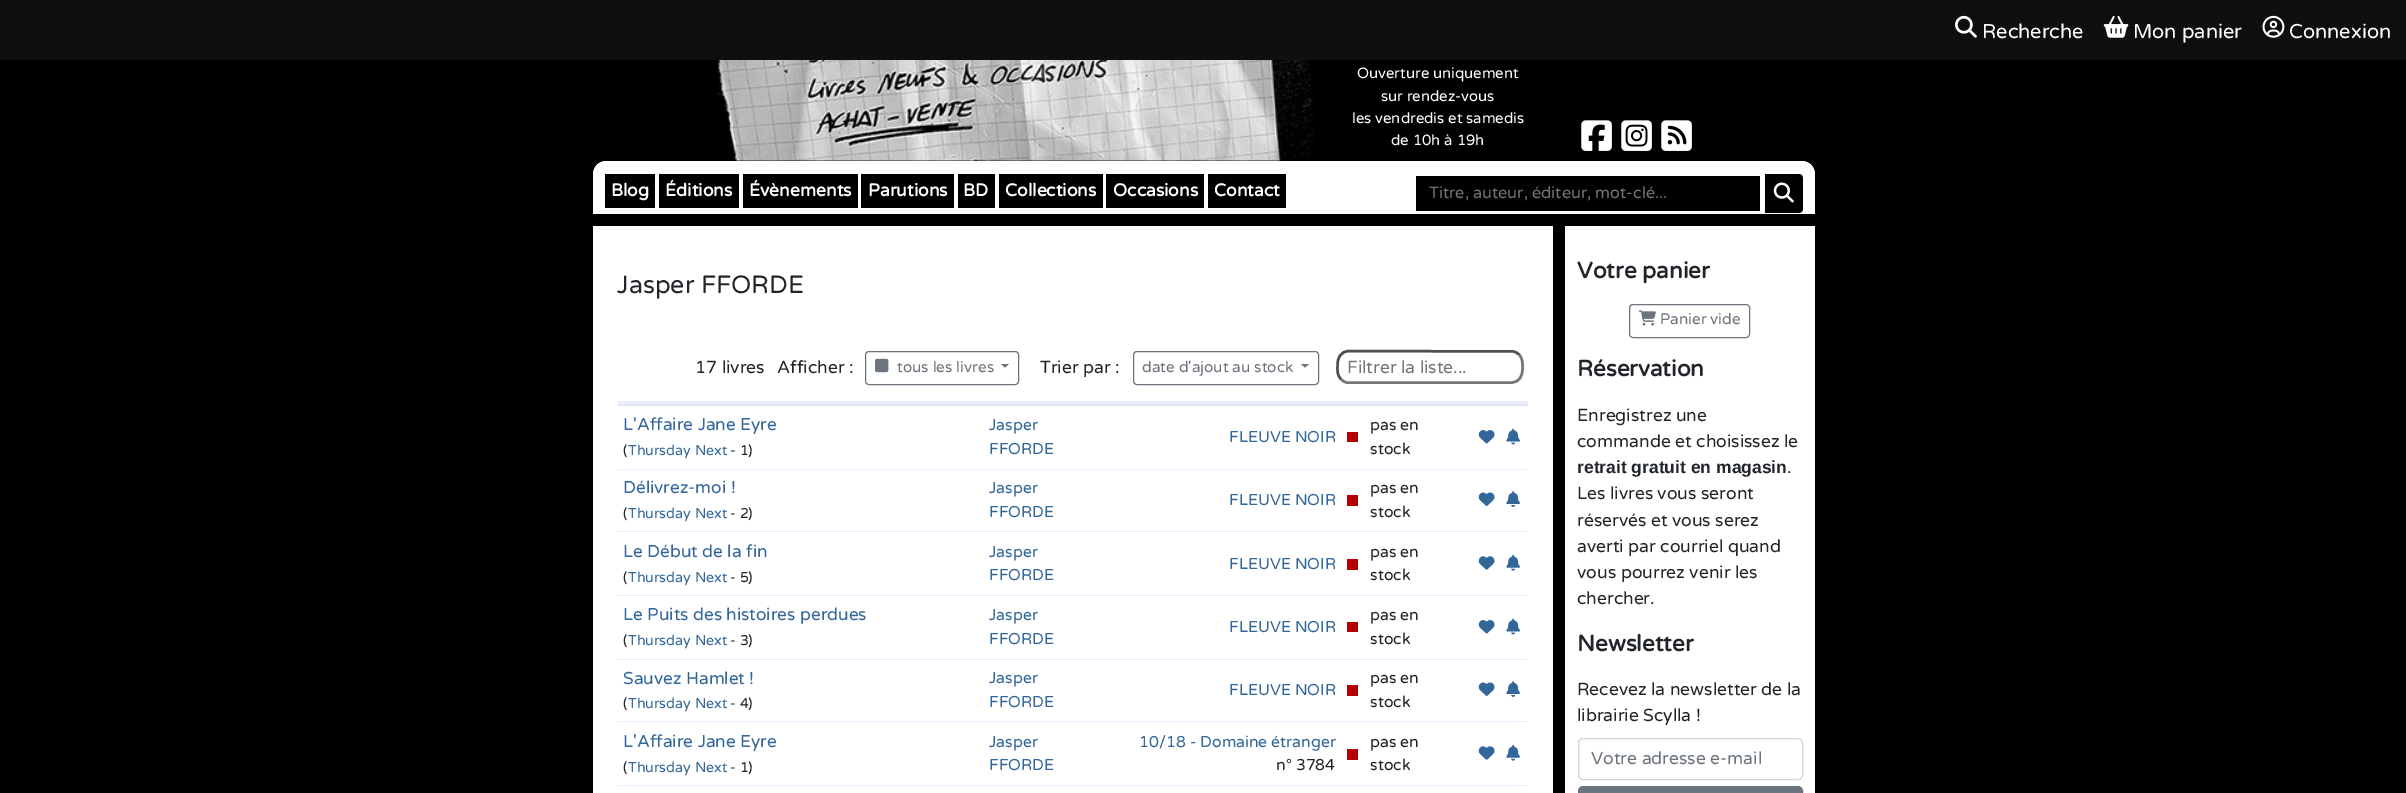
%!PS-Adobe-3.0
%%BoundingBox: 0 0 2406 793
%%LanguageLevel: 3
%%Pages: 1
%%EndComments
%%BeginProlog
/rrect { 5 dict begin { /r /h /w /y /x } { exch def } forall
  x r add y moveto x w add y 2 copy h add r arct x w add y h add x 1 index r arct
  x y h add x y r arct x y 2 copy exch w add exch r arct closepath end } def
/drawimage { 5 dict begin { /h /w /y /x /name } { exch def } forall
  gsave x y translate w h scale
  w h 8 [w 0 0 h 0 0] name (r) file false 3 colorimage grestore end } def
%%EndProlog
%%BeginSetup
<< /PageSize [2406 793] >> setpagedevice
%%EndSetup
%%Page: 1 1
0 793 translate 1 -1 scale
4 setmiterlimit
0 setgray
0 0 2406 793 rectfill
0.059 setgray
0 0 2406 60 rectfill
(images/1.raw) 1955 15 22 23 drawimage
(images/2.raw) 2103 15 26 23 drawimage
(images/3.raw) 2262 15 23 23 drawimage
(images/4.raw) 715 60 601 101 drawimage
(images/5.raw) 1581 120 31 31 drawimage
(images/6.raw) 1621 120 31 31 drawimage
(images/7.raw) 1661 120 31 31 drawimage
1 setgray
593 161 1222 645 13 rrect fill
0 setgray
593 214 1222 12 rectfill
605 174 50 34 rectfill
659 174 80 34 rectfill
743 174 115 34 rectfill
861 174 93 34 rectfill
958 174 37 34 rectfill
999 174 104 34 rectfill
1106 174 98 34 rectfill
1208 174 78 34 rectfill
1416 176 344 35 rectfill
newpath 1765 174 moveto 1799 174 lineto 1801 174 1803 176 1803 178 curveto 1803 209 lineto 1803 211 1801 213 1799 213 curveto 1765 213 lineto closepath fill
(images/8.raw) 1773 182 21 21 drawimage
0.91 0.929 1 setrgbcolor
618 401 910 4 rectfill
0.424 0.459 0.49 setrgbcolor
865.5 351.5 153 33 3.5 rrect stroke
(images/9.raw) 875 358 14 15 drawimage
newpath 1001 364 moveto 1009 364 lineto 1005 367.5 lineto closepath fill
1133.5 351.5 185 33 3.5 rrect stroke
newpath 1301 364 moveto 1309 364 lineto 1305 367.5 lineto closepath fill
0.463 setgray
2.5 setlinewidth
newpath 1519 354.5 moveto 1523 358.5 1522.5 363.5 1522.5 368.5 curveto 1522.5 375.5 1520 382.5 1511 382.5 curveto 1346.5 382.5 lineto 1344.5 382 1342.5 381 1341 379 curveto stroke
0.31 setgray
newpath 1341 379 moveto 1337 375.5 1337.5 370.5 1337.5 365.5 curveto 1337.5 358 1340 351.5 1349 351 curveto 1513.5 351.5 lineto 1515.5 352 1517.5 353 1519 354.5 curveto stroke
0.871 0.886 0.902 setrgbcolor
618 405 910 1 rectfill
0.91 0.929 1 setrgbcolor
618 469 910 1 rectfill
(images/10.raw) 1506 428 14 17 drawimage
0.702 0 0 setrgbcolor
1347 432 11 10 rectfill
(images/11.raw) 1478 430 17 14 drawimage
0.91 0.929 1 setrgbcolor
618 531 910 1 rectfill
(images/12.raw) 1506 491 14 16 drawimage
0.702 0 0 setrgbcolor
1347 495 11 11 rectfill
(images/13.raw) 1478 492 17 14 drawimage
0.91 0.929 1 setrgbcolor
618 595 910 1 rectfill
(images/14.raw) 1506 555 14 16 drawimage
0.702 0 0 setrgbcolor
1347 559 11 11 rectfill
(images/15.raw) 1478 556 17 14 drawimage
0.91 0.929 1 setrgbcolor
618 659 910 1 rectfill
(images/10.raw) 1506 618 14 17 drawimage
0.702 0 0 setrgbcolor
1347 622 11 10 rectfill
(images/11.raw) 1478 620 17 14 drawimage
0.91 0.929 1 setrgbcolor
618 721 910 1 rectfill
(images/12.raw) 1506 681 14 16 drawimage
0.702 0 0 setrgbcolor
1347 685 11 11 rectfill
(images/13.raw) 1478 682 17 14 drawimage
0.91 0.929 1 setrgbcolor
618 785 910 1 rectfill
(images/14.raw) 1506 745 14 16 drawimage
0.702 0 0 setrgbcolor
1347 749 11 11 rectfill
(images/15.raw) 1478 746 17 14 drawimage
0 setgray
1553 226 12 567 rectfill
0.424 0.459 0.49 setrgbcolor
1 setlinewidth
1629.5 304.5 120 33 3.5 rrect stroke
(images/16.raw) 1638 310 18 16 drawimage
0.808 0.831 0.855 setrgbcolor
1578.5 738.5 224 41 4.5 rrect stroke
0.424 0.459 0.49 setrgbcolor
1578.5 786.5 224 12 4.5 rrect gsave fill grestore
stroke
/VarelaRound-Regular [20 0 0 -20 0 0] selectfont
1 setgray
1982 38 moveto (Recherche) show
2133 38 moveto (Mon panier) show
2289 38 moveto (Connexion) show
/VarelaRound-Regular [14.9 0 0 -14.9 0 0] selectfont
1357 78 moveto (Ouverture uniquement) show
1381 101 moveto (sur rendez-vous) show
1352 123 moveto (les vendredis et samedis) show
1391 145 moveto (de 10h à 19h) show
/VarelaRound-Bold [17.5 0 0 -17.5 0 0] selectfont
611 196 moveto (Blog) show
665 196 moveto (Éditions) show
749 196 moveto (Évènements) show
868 196 moveto (Parutions) show
963 196 moveto (BD) show
1005 196 moveto (Collections) show
1113 196 moveto (Occasions) show
1214 196 moveto (Contact) show
/VarelaRound-Regular [16.25 0 0 -16.25 0 0] selectfont
0.459 setgray
1429 198 moveto (Titre, auteur, éditeur, mot-clé...) show
/VarelaRound-Regular [25 0 0 -25 0 0] selectfont
0.129 0.145 0.161 setrgbcolor
617 293 moveto (Jasper FFORDE) show
/VarelaRound-Regular [17.5 0 0 -17.5 0 0] selectfont
695 373 moveto (17 livres) show
777 373 moveto (Afficher :) show
/VarelaRound-Regular [15.25 0 0 -15.25 0 0] selectfont
0.424 0.459 0.49 setrgbcolor
897 372 moveto (tous les livres) show
/VarelaRound-Regular [17.5 0 0 -17.5 0 0] selectfont
0.129 0.145 0.161 setrgbcolor
1040 373 moveto (Trier par :) show
/VarelaRound-Regular [15.25 0 0 -15.25 0 0] selectfont
0.424 0.459 0.49 setrgbcolor
1142 372 moveto (date d'ajout au stock) show
/VarelaRound-Regular [17.5 0 0 -17.5 0 0] selectfont
0.459 setgray
1347 373 moveto (Filtrer la liste...) show
/VarelaRound-Regular [17.25 0 0 -17.25 0 0] selectfont
0.2 0.4 0.6 setrgbcolor
623 430 moveto (L'Affaire Jane Eyre) show
/VarelaRound-Regular [14.25 0 0 -14.25 0 0] selectfont
0.129 0.145 0.161 setrgbcolor
623 455 moveto (\() show
0.2 0.4 0.6 setrgbcolor
628 455 moveto (Thursday Next) show
0.129 0.145 0.161 setrgbcolor
730 455 moveto (- 1\)) show
/VarelaRound-Regular [15.75 0 0 -15.75 0 0] selectfont
0.2 0.4 0.6 setrgbcolor
989 430 moveto (Jasper) show
989 454 moveto (FFORDE) show
1229 442 moveto (FLEUVE NOIR) show
0.129 0.145 0.161 setrgbcolor
1370 430 moveto (pas en) show
1370 454 moveto (stock) show
/VarelaRound-Regular [17.25 0 0 -17.25 0 0] selectfont
0.2 0.4 0.6 setrgbcolor
623 493 moveto (Délivrez-moi !) show
/VarelaRound-Regular [14.25 0 0 -14.25 0 0] selectfont
0.129 0.145 0.161 setrgbcolor
623 518 moveto (\() show
0.2 0.4 0.6 setrgbcolor
628 518 moveto (Thursday Next) show
0.129 0.145 0.161 setrgbcolor
730 518 moveto (- 2\)) show
/VarelaRound-Regular [15.75 0 0 -15.75 0 0] selectfont
0.2 0.4 0.6 setrgbcolor
989 493 moveto (Jasper) show
989 517 moveto (FFORDE) show
0.129 0.145 0.161 setrgbcolor
1370 493 moveto (pas en) show
1370 517 moveto (stock) show
0.2 0.4 0.6 setrgbcolor
1229 505 moveto (FLEUVE NOIR) show
/VarelaRound-Regular [17.25 0 0 -17.25 0 0] selectfont
623 557 moveto (Le Début de la fin) show
/VarelaRound-Regular [14.25 0 0 -14.25 0 0] selectfont
0.129 0.145 0.161 setrgbcolor
623 582 moveto (\() show
0.2 0.4 0.6 setrgbcolor
628 582 moveto (Thursday Next) show
0.129 0.145 0.161 setrgbcolor
730 582 moveto (- 5\)) show
/VarelaRound-Regular [15.75 0 0 -15.75 0 0] selectfont
0.2 0.4 0.6 setrgbcolor
989 557 moveto (Jasper) show
989 580 moveto (FFORDE) show
0.129 0.145 0.161 setrgbcolor
1370 557 moveto (pas en) show
1370 580 moveto (stock) show
0.2 0.4 0.6 setrgbcolor
1229 569 moveto (FLEUVE NOIR) show
/VarelaRound-Regular [17.25 0 0 -17.25 0 0] selectfont
623 620 moveto (Le Puits des histoires perdues) show
/VarelaRound-Regular [14.25 0 0 -14.25 0 0] selectfont
0.129 0.145 0.161 setrgbcolor
623 645 moveto (\() show
0.2 0.4 0.6 setrgbcolor
628 645 moveto (Thursday Next) show
0.129 0.145 0.161 setrgbcolor
730 645 moveto (- 3\)) show
/VarelaRound-Regular [15.75 0 0 -15.75 0 0] selectfont
0.2 0.4 0.6 setrgbcolor
989 620 moveto (Jasper) show
989 644 moveto (FFORDE) show
0.129 0.145 0.161 setrgbcolor
1370 620 moveto (pas en) show
1370 644 moveto (stock) show
0.2 0.4 0.6 setrgbcolor
1229 632 moveto (FLEUVE NOIR) show
/VarelaRound-Regular [17.25 0 0 -17.25 0 0] selectfont
623 684 moveto (Sauvez Hamlet !) show
/VarelaRound-Regular [14.25 0 0 -14.25 0 0] selectfont
0.129 0.145 0.161 setrgbcolor
623 708 moveto (\() show
0.2 0.4 0.6 setrgbcolor
628 708 moveto (Thursday Next) show
0.129 0.145 0.161 setrgbcolor
730 708 moveto (- 4\)) show
/VarelaRound-Regular [15.75 0 0 -15.75 0 0] selectfont
0.2 0.4 0.6 setrgbcolor
989 683 moveto (Jasper) show
989 707 moveto (FFORDE) show
0.129 0.145 0.161 setrgbcolor
1370 683 moveto (pas en) show
1370 707 moveto (stock) show
0.2 0.4 0.6 setrgbcolor
1229 695 moveto (FLEUVE NOIR) show
/VarelaRound-Regular [17.25 0 0 -17.25 0 0] selectfont
623 747 moveto (L'Affaire Jane Eyre) show
/VarelaRound-Regular [14.25 0 0 -14.25 0 0] selectfont
0.129 0.145 0.161 setrgbcolor
623 772 moveto (\() show
0.2 0.4 0.6 setrgbcolor
628 772 moveto (Thursday Next) show
0.129 0.145 0.161 setrgbcolor
730 772 moveto (- 1\)) show
/VarelaRound-Regular [15.75 0 0 -15.75 0 0] selectfont
0.2 0.4 0.6 setrgbcolor
989 747 moveto (Jasper) show
989 770 moveto (FFORDE) show
1139 747 moveto (10/18 - Domaine étranger) show
0.129 0.145 0.161 setrgbcolor
1276 770 moveto (n° 3784) show
1370 747 moveto (pas en) show
1370 770 moveto (stock) show
/VarelaRound-Bold [22.5 0 0 -22.5 0 0] selectfont
1577 278 moveto (Votre panier) show
/VarelaRound-Regular [15.25 0 0 -15.25 0 0] selectfont
0.424 0.459 0.49 setrgbcolor
1660 324 moveto (Panier vide) show
/VarelaRound-Bold [22.5 0 0 -22.5 0 0] selectfont
0.129 0.145 0.161 setrgbcolor
1577 376 moveto (Réservation) show
/VarelaRound-Regular [17.5 0 0 -17.5 0 0] selectfont
1577 421 moveto (Enregistrez une) show
1577 447 moveto (commande et choisissez le) show
/LiberationSans-Bold [17.5 0 0 -17.5 0 0] selectfont
1577 473 moveto (retrait gratuit en magasin) show
/VarelaRound-Regular [17.5 0 0 -17.5 0 0] selectfont
1787 473 moveto (.) show
1577 499 moveto (Les livres vous seront) show
1577 526 moveto (réservés et vous serez) show
1577 552 moveto (averti par courriel quand) show
1577 578 moveto (vous pourrez venir les) show
1577 604 moveto (chercher.) show
/VarelaRound-Bold [22.5 0 0 -22.5 0 0] selectfont
1577 651 moveto (Newsletter) show
/VarelaRound-Regular [17.5 0 0 -17.5 0 0] selectfont
1577 695 moveto (Recevez la newsletter de la) show
1577 721 moveto (librairie Scylla !) show
0.424 0.459 0.49 setrgbcolor
1591 764 moveto (Votre adresse e-mail) show
showpage
%%EOF
